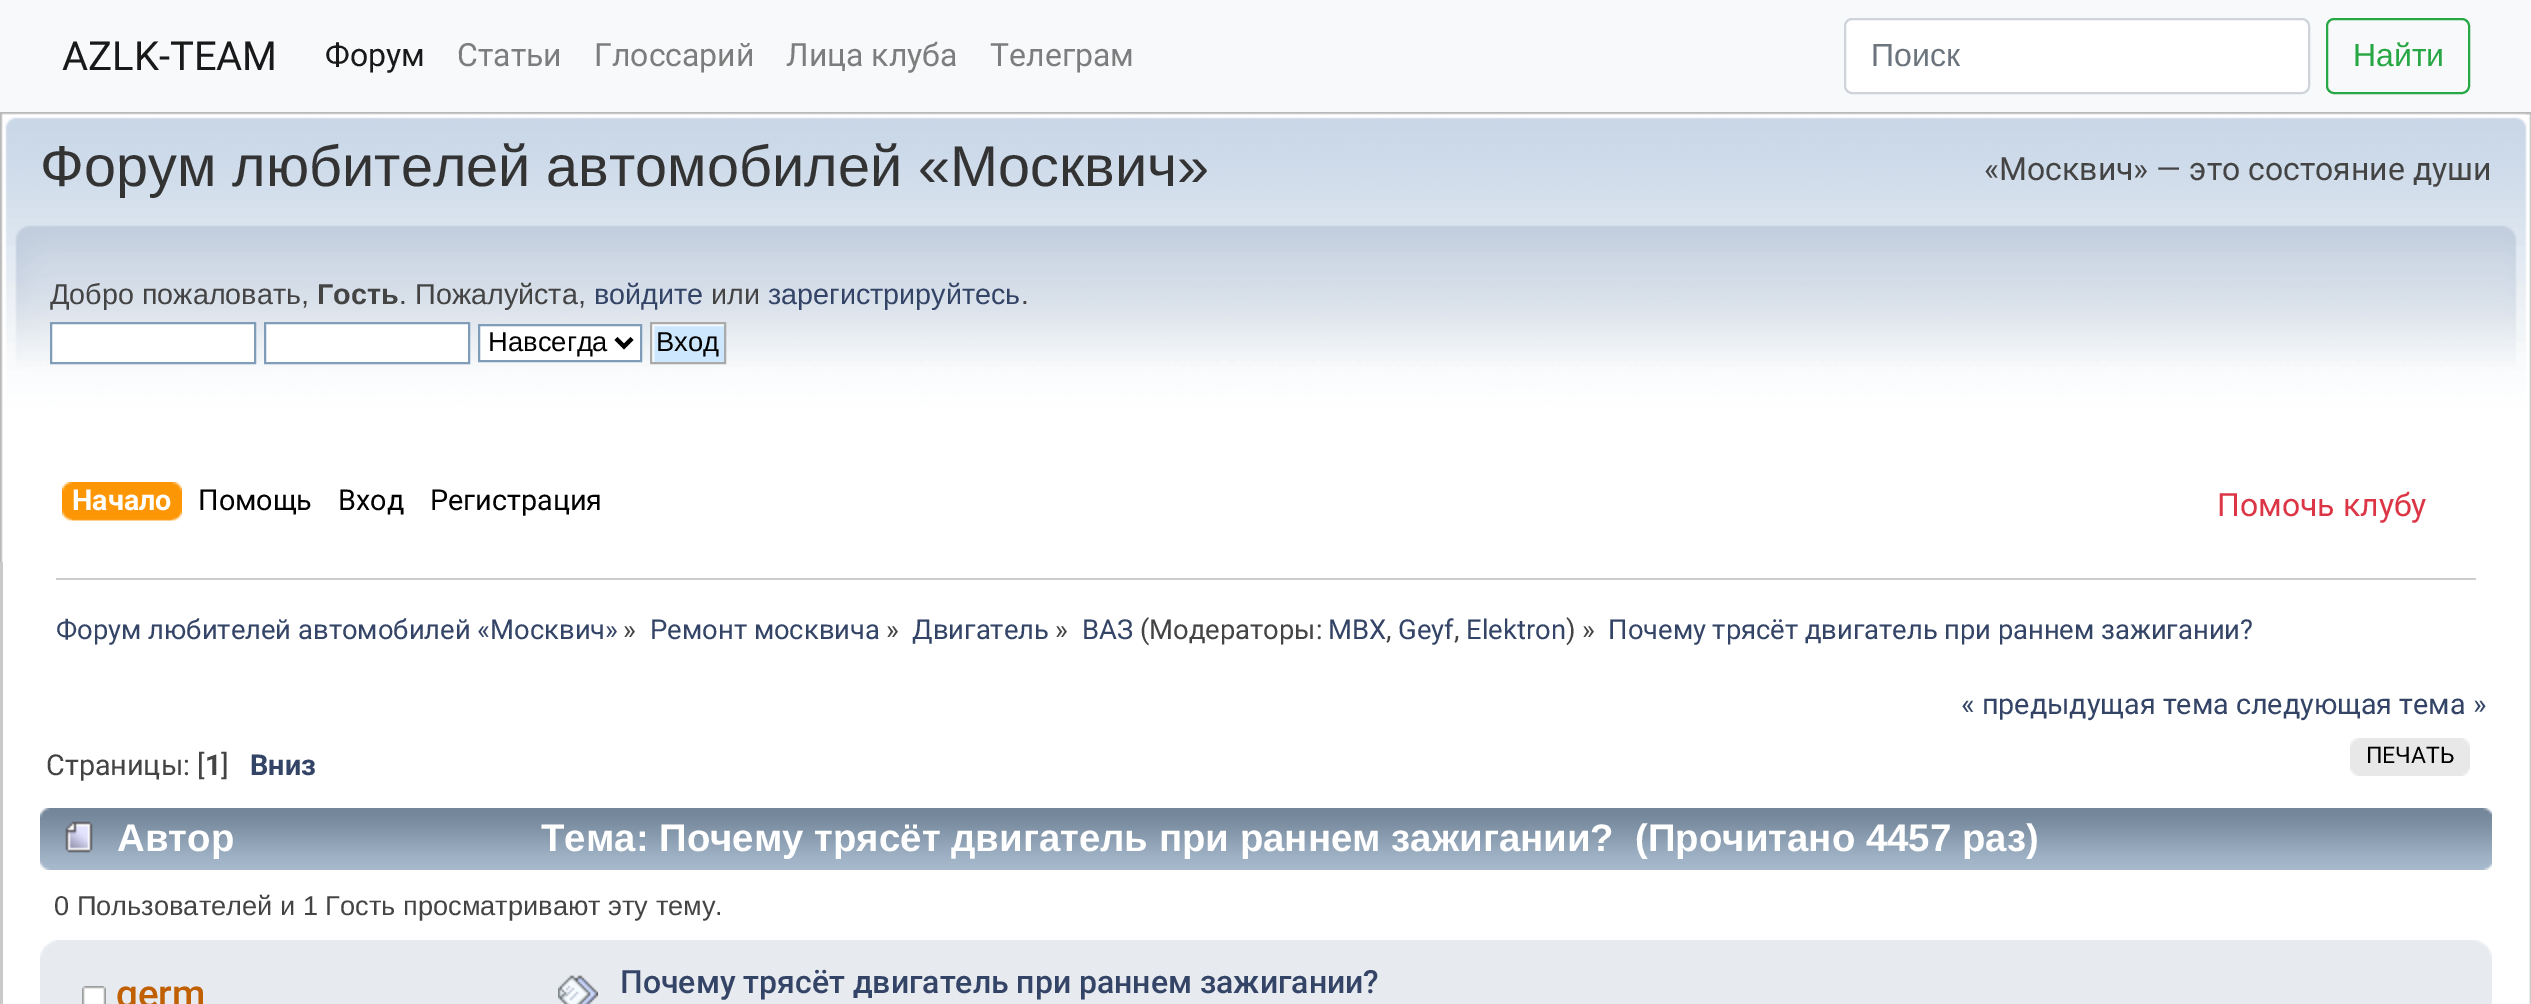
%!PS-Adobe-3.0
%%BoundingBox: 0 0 2531 1004
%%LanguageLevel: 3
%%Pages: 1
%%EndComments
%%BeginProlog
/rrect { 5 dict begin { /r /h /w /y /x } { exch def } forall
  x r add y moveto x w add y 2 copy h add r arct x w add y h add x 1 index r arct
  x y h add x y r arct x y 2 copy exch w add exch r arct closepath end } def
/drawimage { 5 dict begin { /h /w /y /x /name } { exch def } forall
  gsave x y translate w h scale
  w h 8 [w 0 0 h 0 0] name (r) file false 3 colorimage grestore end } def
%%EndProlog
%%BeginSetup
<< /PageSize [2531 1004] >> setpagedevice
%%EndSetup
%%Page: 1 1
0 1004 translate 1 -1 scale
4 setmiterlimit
1 setgray
0 0 2531 1004 rectfill
0.973 0.976 0.98 setrgbcolor
0 0 2531 112 rectfill
1 setgray
1845 19 464 74 7 rrect gsave fill grestore
0.808 0.831 0.855 setrgbcolor
2 setlinewidth
stroke
0.157 0.655 0.271 setrgbcolor
2327 19 142 74 7 rrect stroke
(images/1.raw) 0 112 2531 450 drawimage
(images/2.raw) 2505 113 26 449 drawimage
1 setgray
newpath 51 323 moveto 255 323 lineto 255 363 lineto 51 363 lineto closepath gsave fill grestore
0.498 0.616 0.725 setrgbcolor
stroke
1 setgray
newpath 265 323 moveto 469 323 lineto 469 363 lineto 265 363 lineto closepath gsave fill grestore
0.498 0.616 0.725 setrgbcolor
stroke
1 setgray
newpath 479 325 moveto 641 325 lineto 641 361 lineto 479 361 lineto closepath gsave fill grestore
0.498 0.616 0.725 setrgbcolor
stroke
0 setgray
4 setlinewidth
newpath 616 338.5 moveto 624 346.5 lineto 632 338.5 lineto stroke
(images/3.raw) 652 324 72 38 drawimage
0.667 setgray
2 setlinewidth
651 323 74 40 rectstroke
(images/4.raw) 72 482 110 39 drawimage
(images/5.raw) 62 482 110 39 drawimage
0.788 setgray
0 562 3 442 rectfill
(images/6.raw) 2529 562 2 442 drawimage
0.8 setgray
56 578 2420 2 rectfill
0.91 setgray
2358 738 105 38 rectfill
(images/7.raw) 2350 738 8 38 drawimage
(images/8.raw) 2463 738 7 38 drawimage
(images/9.raw) 40 808 2443 62 drawimage
(images/10.raw) 2483 808 9 62 drawimage
(images/11.raw) 65 821 28 32 drawimage
0.906 0.918 0.937 setrgbcolor
40 940 2452 64 rectfill
(images/12.raw) 40 940 17 17 drawimage
(images/13.raw) 2475 940 17 16 drawimage
(images/14.raw) 82 986 24 18 drawimage
(images/15.raw) 558 975 40 29 drawimage
/Roboto-Regular [40 0 0 -40 0 0] selectfont
0.098 setgray
62 70 moveto (AZLK-TEAM) show
/Roboto-Regular [32 0 0 -32 0 0] selectfont
325 66 moveto (Форум) show
0.486 0.49 0.49 setrgbcolor
457 66 moveto (Статьи) show
594 66 moveto (Глоссарий) show
786 66 moveto (Лица клуба) show
990 66 moveto (Телеграм) show
/LiberationSans-Regular [32 0 0 -32 0 0] selectfont
0.424 0.459 0.49 setrgbcolor
1871 66 moveto (Поиск) show
0.157 0.655 0.271 setrgbcolor
2353 66 moveto (Найти) show
/LiberationSans-Regular [57.6 0 0 -57.6 0 0] selectfont
0.2 setgray
40 186 moveto (Форум любителей автомобилей «Москвич») show
/Roboto-Regular [32 0 0 -32 0 0] selectfont
0.267 setgray
1984 180 moveto («Москвич» — это состояние души) show
/LiberationSans-Regular [28.75 0 0 -28.75 0 0] selectfont
50 304 moveto (Добро пожаловать,) show
/LiberationSans-Bold [28.75 0 0 -28.75 0 0] selectfont
317 304 moveto (Гость) show
/LiberationSans-Regular [28.75 0 0 -28.75 0 0] selectfont
399 304 moveto (. Пожалуйста,) show
0.2 0.267 0.4 setrgbcolor
594 304 moveto (войдите) show
0.267 setgray
711 304 moveto (или) show
0.2 0.267 0.4 setrgbcolor
768 304 moveto (зарегистрируйтесь) show
0.267 setgray
1021 304 moveto (.) show
/LiberationSans-Regular [27.4 0 0 -27.4 0 0] selectfont
0 setgray
488 351 moveto (Навсегда) show
656 351 moveto (Вход) show
/Roboto-Bold [28.75 0 0 -28.75 0 0] selectfont
1 setgray
72 510 moveto (Начало) show
/Roboto-Regular [28.75 0 0 -28.75 0 0] selectfont
0 setgray
198 510 moveto (Помощь) show
338 510 moveto (Вход) show
430 510 moveto (Регистрация) show
/Roboto-Regular [32 0 0 -32 0 0] selectfont
0.863 0.208 0.271 setrgbcolor
2217 516 moveto (Помочь клубу) show
/Roboto-Regular [27.4 0 0 -27.4 0 0] selectfont
0.2 0.267 0.4 setrgbcolor
56 639 moveto (Форум любителей автомобилей «Москвич») show
0.267 setgray
623 639 moveto (») show
0.2 0.267 0.4 setrgbcolor
650 639 moveto (Ремонт москвича) show
0.267 setgray
886 639 moveto (») show
0.2 0.267 0.4 setrgbcolor
912 639 moveto (Двигатель) show
0.267 setgray
1055 639 moveto (») show
0.2 0.267 0.4 setrgbcolor
1082 639 moveto (ВАЗ) show
0.267 setgray
1140 639 moveto (\(Модераторы:) show
0.2 0.267 0.4 setrgbcolor
1328 639 moveto (MBX) show
0.267 setgray
1386 639 moveto (,) show
0.2 0.267 0.4 setrgbcolor
1398 639 moveto (Geyf) show
0.267 setgray
1454 639 moveto (,) show
0.2 0.267 0.4 setrgbcolor
1466 639 moveto (Elektron) show
0.267 setgray
1566 639 moveto (\) ») show
0.2 0.267 0.4 setrgbcolor
1608 639 moveto -0.25 0 32 (Почему трясёт двигатель при раннем зажигании?) widthshow
/Roboto-Regular [28.75 0 0 -28.75 0 0] selectfont
1961 714 moveto (« предыдущая тема следующая тема ») show
0.267 setgray
46 775 moveto (Страницы: [) show
/Roboto-Bold [28.75 0 0 -28.75 0 0] selectfont
205 775 moveto (1) show
/Roboto-Regular [28.75 0 0 -28.75 0 0] selectfont
221 775 moveto (]) show
/Roboto-Bold [28.75 0 0 -28.75 0 0] selectfont
0.2 0.267 0.4 setrgbcolor
250 775 moveto (Вниз) show
/Roboto-Regular [23 0 0 -23 0 0] selectfont
0 setgray
2366 763 moveto (ПЕЧАТЬ) show
/LiberationSans-Bold [38.4 0 0 -38.4 0 0] selectfont
1 setgray
117 851 moveto (Автор) show
541 851 moveto (Тема: Почему трясёт двигатель при раннем зажигании?  \(Прочитано 4457 раз\)) show
/LiberationSans-Regular [27.2 0 0 -27.2 0 0] selectfont
0.267 setgray
54 915 moveto (0 Пользователей и 1 Гость просматривают эту тему.) show
/Roboto-Medium [38.4 0 0 -38.4 0 0] selectfont
0.753 0.376 0.008 setrgbcolor
116 1007 moveto (germ) show
/Roboto-Medium [32 0 0 -32 0 0] selectfont
0.2 0.267 0.4 setrgbcolor
620 993 moveto (Почему трясёт двигатель при раннем зажигании?) show
showpage
%%EOF
